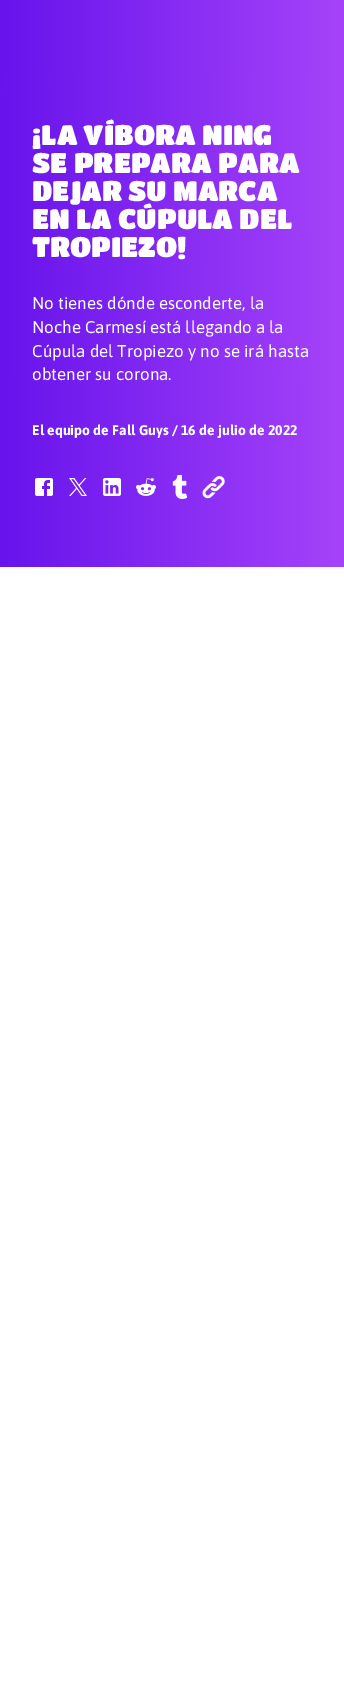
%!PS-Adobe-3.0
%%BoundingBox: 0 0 344 1703
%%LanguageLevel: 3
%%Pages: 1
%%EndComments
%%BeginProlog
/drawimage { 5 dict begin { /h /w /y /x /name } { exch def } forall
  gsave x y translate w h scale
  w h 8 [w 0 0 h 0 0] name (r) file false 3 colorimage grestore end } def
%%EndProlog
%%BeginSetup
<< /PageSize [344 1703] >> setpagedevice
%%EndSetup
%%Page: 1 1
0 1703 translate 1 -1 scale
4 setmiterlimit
1 setgray
0 0 344 1703 rectfill
gsave newpath 0 0 moveto 344 0 lineto 344 72 lineto 0 72 lineto closepath clip newpath
<< /ShadingType 2 /ColorSpace /DeviceRGB /Coords [344 36 0 36] /Extend [true true] /Function << /FunctionType 2 /Domain [0 1] /C0 [0.651 0.263 0.98] /C1 [0.404 0.075 0.925] /N 1 >> >> shfill grestore
gsave newpath 0 72 moveto 344 72 lineto 344 567 lineto 0 567 lineto closepath clip newpath
<< /ShadingType 2 /ColorSpace /DeviceRGB /Coords [344 319 0 320] /Extend [true true] /Function << /FunctionType 2 /Domain [0 1] /C0 [0.651 0.263 0.98] /C1 [0.404 0.075 0.925] /N 1 >> >> shfill grestore
(images/1.raw) 35 478 18 18 drawimage
(images/2.raw) 69 478 18 18 drawimage
(images/3.raw) 103 478 18 18 drawimage
(images/4.raw) 136 478 20 18 drawimage
(images/5.raw) 172 475 16 24 drawimage
(images/6.raw) 202 476 23 23 drawimage
/TitanOne-Regular [28 0 0 -28 0 0] selectfont
32 145 moveto (¡LA VÍBORA NING) show
32 173 moveto (SE PREPARA PARA) show
32 201 moveto (DEJAR SU MARCA) show
32 229 moveto (EN LA CÚPULA DEL) show
32 257 moveto (TROPIEZO!) show
/Asap-Regular [17 0 0 -17 0 0] selectfont
32 309 moveto (No tienes dónde esconderte, la) show
32 333 moveto (Noche Carmesí está llegando a la) show
32 357 moveto (Cúpula del Tropiezo y no se irá hasta) show
32 380 moveto (obtener su corona.) show
/Asap-Bold [14 0 0 -14 0 0] selectfont
32 435 moveto (El equipo de Fall Guys / 16 de julio de 2022) show
showpage
%%EOF
